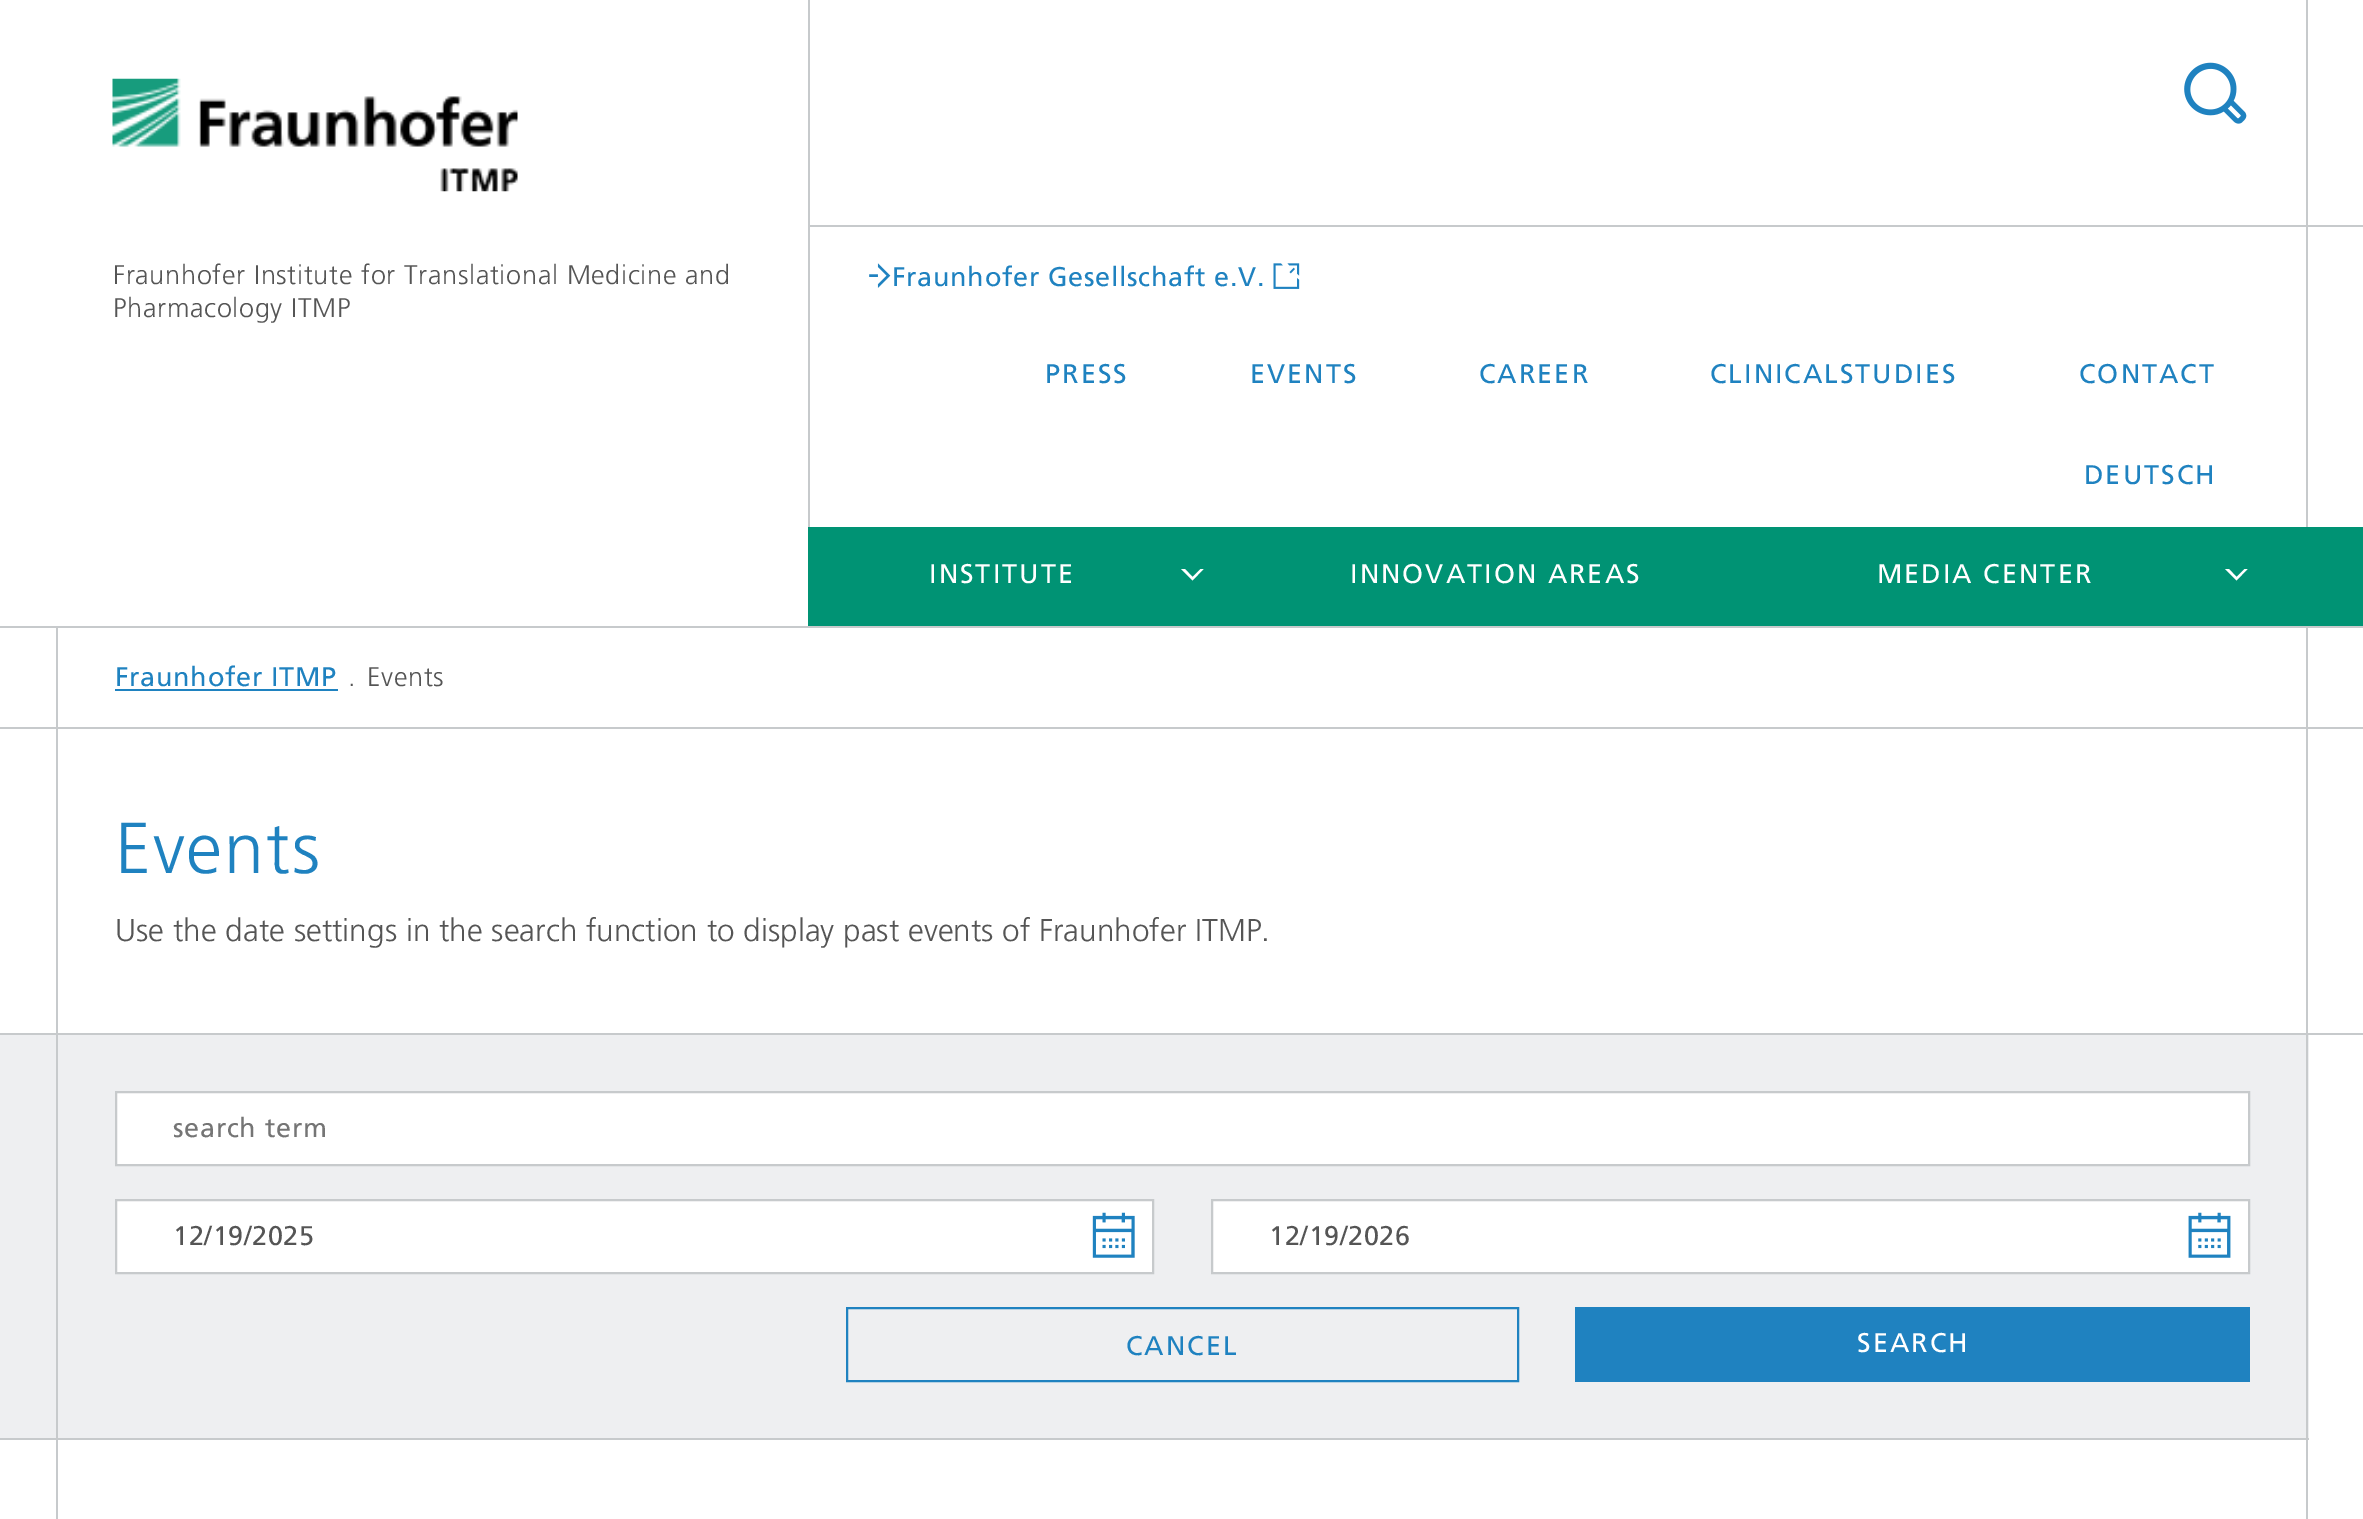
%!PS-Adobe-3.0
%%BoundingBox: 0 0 2363 1519
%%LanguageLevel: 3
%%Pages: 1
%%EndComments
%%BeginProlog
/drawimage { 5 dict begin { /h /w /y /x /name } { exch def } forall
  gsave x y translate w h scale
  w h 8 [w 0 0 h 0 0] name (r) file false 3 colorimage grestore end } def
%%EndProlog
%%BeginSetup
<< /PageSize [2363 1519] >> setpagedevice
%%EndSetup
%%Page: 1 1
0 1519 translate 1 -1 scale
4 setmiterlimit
1 setgray
0 0 2363 1519 rectfill
(images/1.raw) 112 78 406 114 drawimage
(images/2.raw) 2184 62 63 62 drawimage
0.78 0.792 0.8 setrgbcolor
808 225 1555 2 rectfill
2306 0 2 527 rectfill
808 0 2 527 rectfill
(images/3.raw) 869 263 22 25 drawimage
(images/4.raw) 1273 263 27 26 drawimage
0 0.576 0.455 setrgbcolor
808 527 1555 99 rectfill
1 setgray
newpath 1200.5 569 moveto 1192.5 577 lineto 1185 569 lineto 1181 569 lineto 1192.5 580.5 lineto 1203.5 569 lineto closepath fill
newpath 2244.5 569 moveto 2236.5 577 lineto 2229 569 lineto 2225 569 lineto 2236.5 580.5 lineto 2247.5 569 lineto closepath fill
0.78 0.792 0.8 setrgbcolor
0 626 59 2 rectfill
56 626 2307 2 rectfill
0 727 59 2 rectfill
56 727 2307 2 rectfill
2306 626 2 407 rectfill
2306 1033 57 2 rectfill
0 1033 2309 2 rectfill
56 626 2 812 rectfill
0.122 0.51 0.753 setrgbcolor
115 689 223 2 rectfill
0.933 0.937 0.945 setrgbcolor
58 1035 2251 403 rectfill
0.78 0.792 0.8 setrgbcolor
2306 1033 2 405 rectfill
0.933 0.937 0.945 setrgbcolor
0 1035 56 403 rectfill
0.78 0.792 0.8 setrgbcolor
0 1438 2309 2 rectfill
1 setgray
newpath 116 1092 moveto 2249 1092 lineto 2249 1165 lineto 116 1165 lineto closepath gsave fill grestore
0.78 0.792 0.8 setrgbcolor
2 setlinewidth
stroke
1 setgray
newpath 116 1200 moveto 1153 1200 lineto 1153 1273 lineto 116 1273 lineto closepath gsave fill grestore
0.78 0.792 0.8 setrgbcolor
stroke
(images/5.raw) 1092 1212 43 46 drawimage
1 setgray
newpath 1212 1200 moveto 2249 1200 lineto 2249 1273 lineto 1212 1273 lineto closepath gsave fill grestore
0.78 0.792 0.8 setrgbcolor
stroke
(images/6.raw) 2188 1212 43 46 drawimage
0.122 0.51 0.753 setrgbcolor
847 1308 671 73 rectstroke
1575 1307 675 75 rectfill
0.78 0.792 0.8 setrgbcolor
2306 1438 2 81 rectfill
56 1438 2 81 rectfill
/Frutiger-Light [27 0 0 -27 0 0] selectfont
0.333 setgray
113 284 moveto 0.67 0 (Fraunhofer Institute for Translational Medicine and) ashow
113 317 moveto 0.67 0 (Pharmacology ITMP) ashow
/Frutiger-Regular [27 0 0 -27 0 0] selectfont
0.122 0.51 0.753 setrgbcolor
892 286 moveto 0.67 0 (Fraunhofer Gesellschaft e.V.) ashow
1045 383 moveto 2 0 (PRESS) ashow
1250 383 moveto 2 0 (EVENTS) ashow
1479 383 moveto 2 0 (CAREER) ashow
1710 383 moveto 2 0 (CLINICALSTUDIES) ashow
2079 383 moveto 2 0 (CONTACT) ashow
2084 484 moveto 2 0 (DEUTSCH) ashow
1 setgray
929 583 moveto 2 0 (INSTITUTE) ashow
1350 583 moveto 2 0 (INNOVATION AREAS) ashow
1877 583 moveto 2 0 (MEDIA CENTER) ashow
0.122 0.51 0.753 setrgbcolor
115 686 moveto 0.67 0 (Fraunhofer ITMP) ashow
/Frutiger-Light [27 0 0 -27 0 0] selectfont
0.333 setgray
348 686 moveto 0.67 0 (.) ashow
367 686 moveto 0.67 0 (Events) ashow
/Frutiger-Light [72 0 0 -72 0 0] selectfont
0.122 0.51 0.753 setrgbcolor
115 873 moveto 1.75 0 (Events) ashow
/Frutiger-Light [31.5 0 0 -31.5 0 0] selectfont
0.333 setgray
115 941 moveto (Use the date settings in the search function to display past events of Fraunhofer ITMP.) show
/Frutiger-Regular [27 0 0 -27 0 0] selectfont
0.459 setgray
173 1137 moveto 0.67 0 (search term) ashow
0.333 setgray
173 1245 moveto 0.67 0 (12/19/2025) ashow
1269 1245 moveto 0.67 0 (12/19/2026) ashow
0.122 0.51 0.753 setrgbcolor
1126 1355 moveto 2 0 (CANCEL) ashow
1 setgray
1857 1352 moveto 2 0 (SEARCH) ashow
showpage
%%EOF
